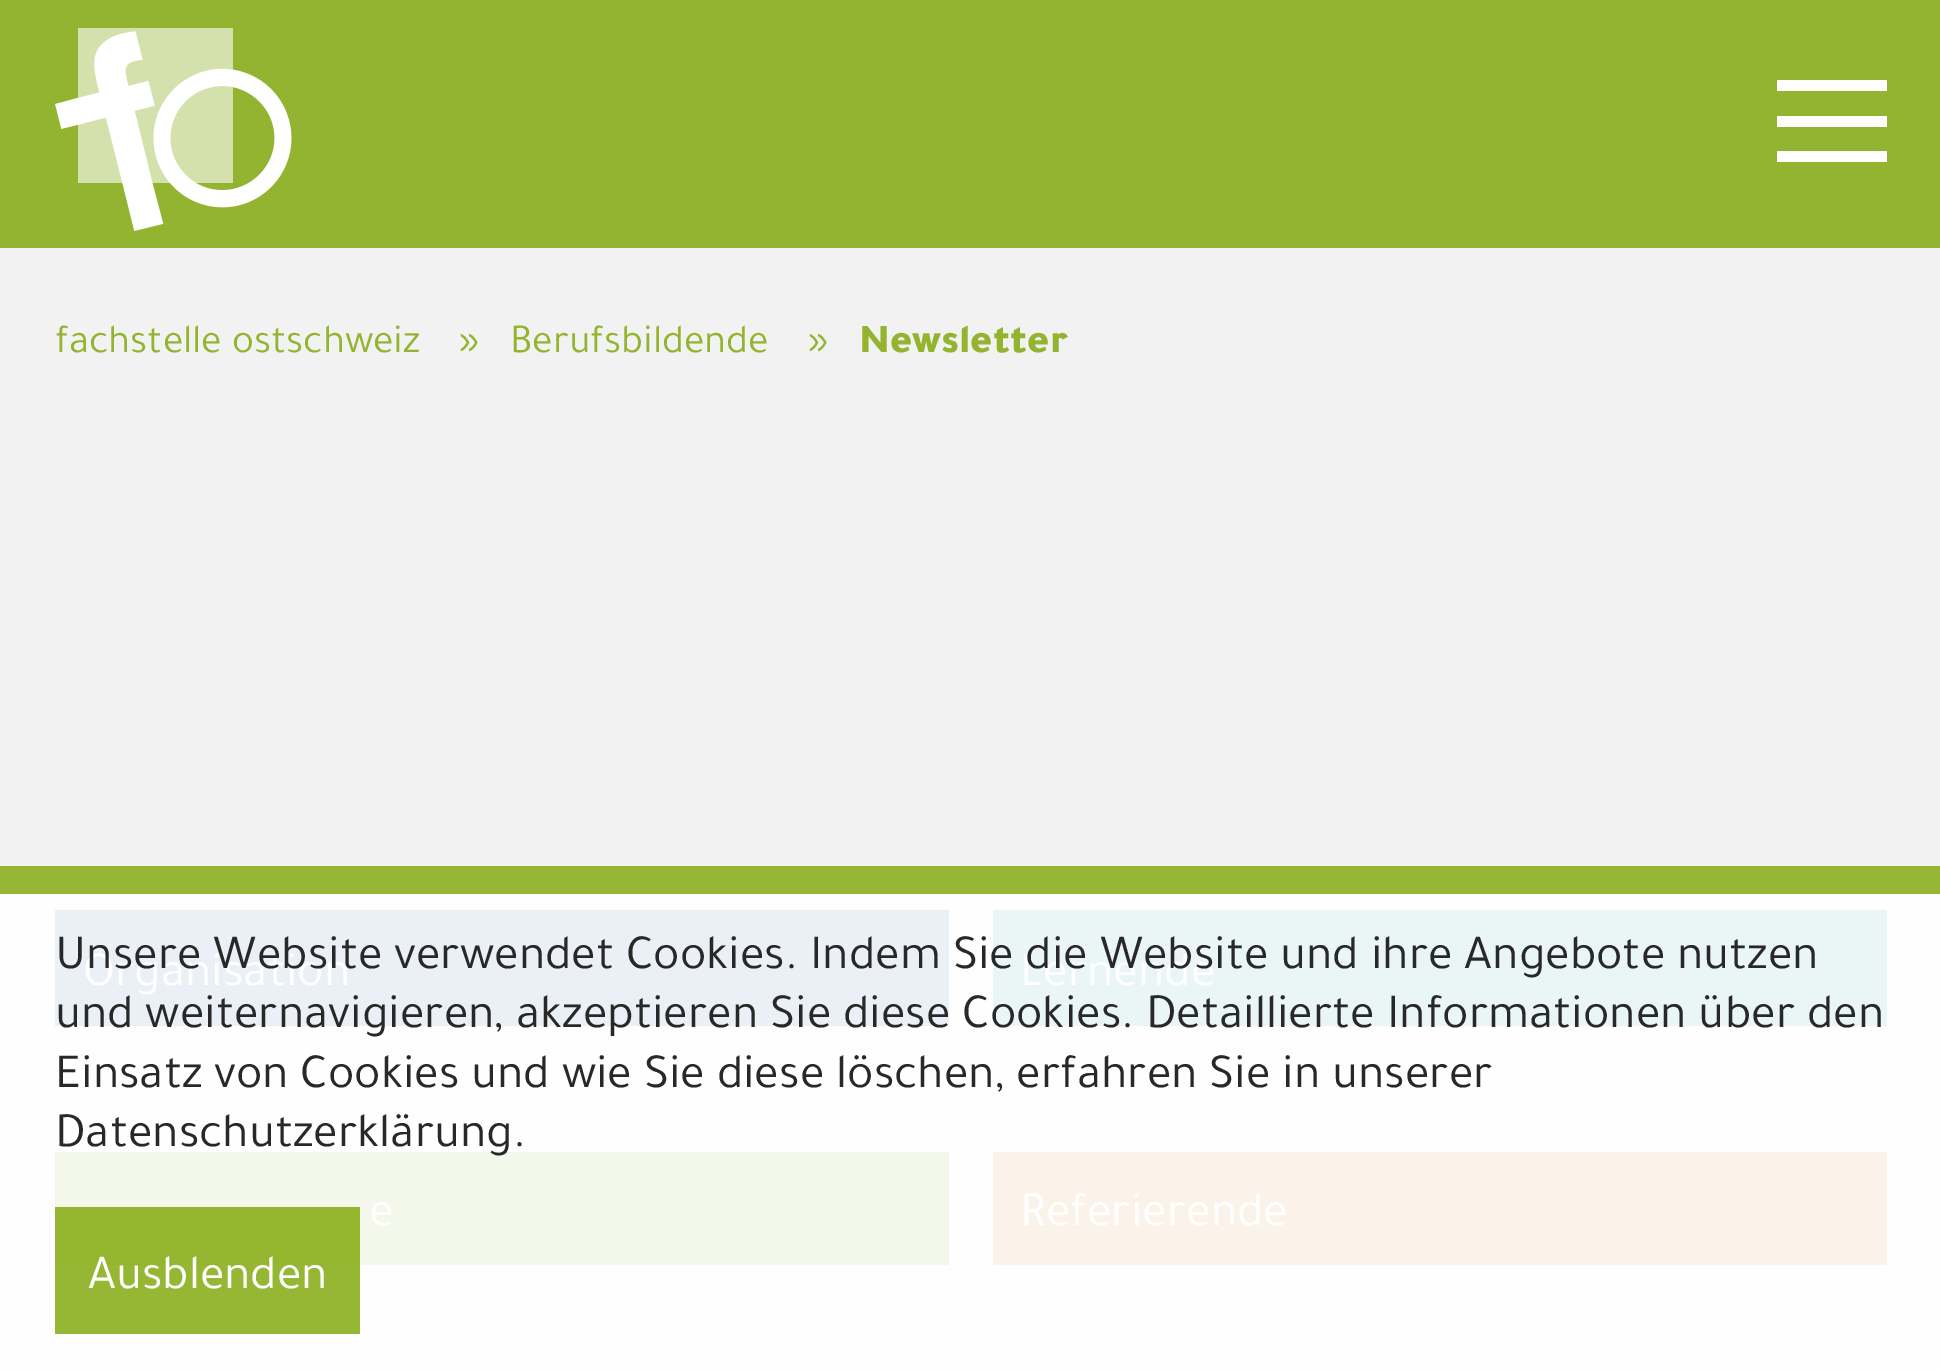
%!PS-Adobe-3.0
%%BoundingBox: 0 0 1940 1371
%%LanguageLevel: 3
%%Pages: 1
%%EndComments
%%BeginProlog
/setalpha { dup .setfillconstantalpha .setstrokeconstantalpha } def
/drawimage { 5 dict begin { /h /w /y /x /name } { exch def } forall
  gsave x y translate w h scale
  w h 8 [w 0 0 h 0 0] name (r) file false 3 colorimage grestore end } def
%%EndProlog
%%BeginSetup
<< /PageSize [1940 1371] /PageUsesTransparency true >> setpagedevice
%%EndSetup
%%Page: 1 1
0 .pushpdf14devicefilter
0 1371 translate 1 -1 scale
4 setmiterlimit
0.949 setgray
0 0 1940 1371 rectfill
0.996 setgray
0 894 1940 477 rectfill
0.576 0.706 0.188 setrgbcolor
0 0 1940 248 rectfill
(images/1.raw) 55 28 237 203 drawimage
1 setgray
1777 80 110 11 rectfill
1777 151 110 11 rectfill
1777 116 110 11 rectfill
0.918 0.941 0.961 setrgbcolor
55 910 894 116 rectfill
0.918 0.961 0.961 setrgbcolor
993 910 894 116 rectfill
0.957 0.973 0.918 setrgbcolor
55 1152 894 113 rectfill
0.984 0.953 0.918 setrgbcolor
993 1152 894 113 rectfill
0.588 0.718 0.2 setrgbcolor
0 866 1940 28 rectfill
0.8 setalpha
0.486 0.647 0 setrgbcolor
55 1207 305 127 rectfill
/Tajawal-Regular [41.25 0 0 -41.25 0 0] selectfont
1 setalpha
0.58 0.706 0.188 setrgbcolor
55 352 moveto (fachstelle ostschweiz) show
459 352 moveto (») show
510 352 moveto (Berufsbildende) show
808 352 moveto (») show
/Tajawal-Black [41.25 0 0 -41.25 0 0] selectfont
859 352 moveto (Newsletter) show
/Tajawal-Regular [49.5 0 0 -49.5 0 0] selectfont
1 setgray
83 985 moveto (Organisation) show
1020 985 moveto (Lernende) show
369 1225 moveto (e) show
1020 1225 moveto (Referierende) show
0.157 setgray
55 968 moveto (Unsere Website verwendet Cookies. Indem Sie die Website und ihre Angebote nutzen) show
55 1027 moveto (und weiternavigieren, akzeptieren Sie diese Cookies. Detaillierte Informationen über den) show
55 1087 moveto (Einsatz von Cookies und wie Sie diese löschen, erfahren Sie in unserer) show
55 1146 moveto (Datenschutzerklärung.) show
1 setgray
88 1288 moveto (Ausblenden) show
.poppdf14devicefilter showpage
%%EOF
